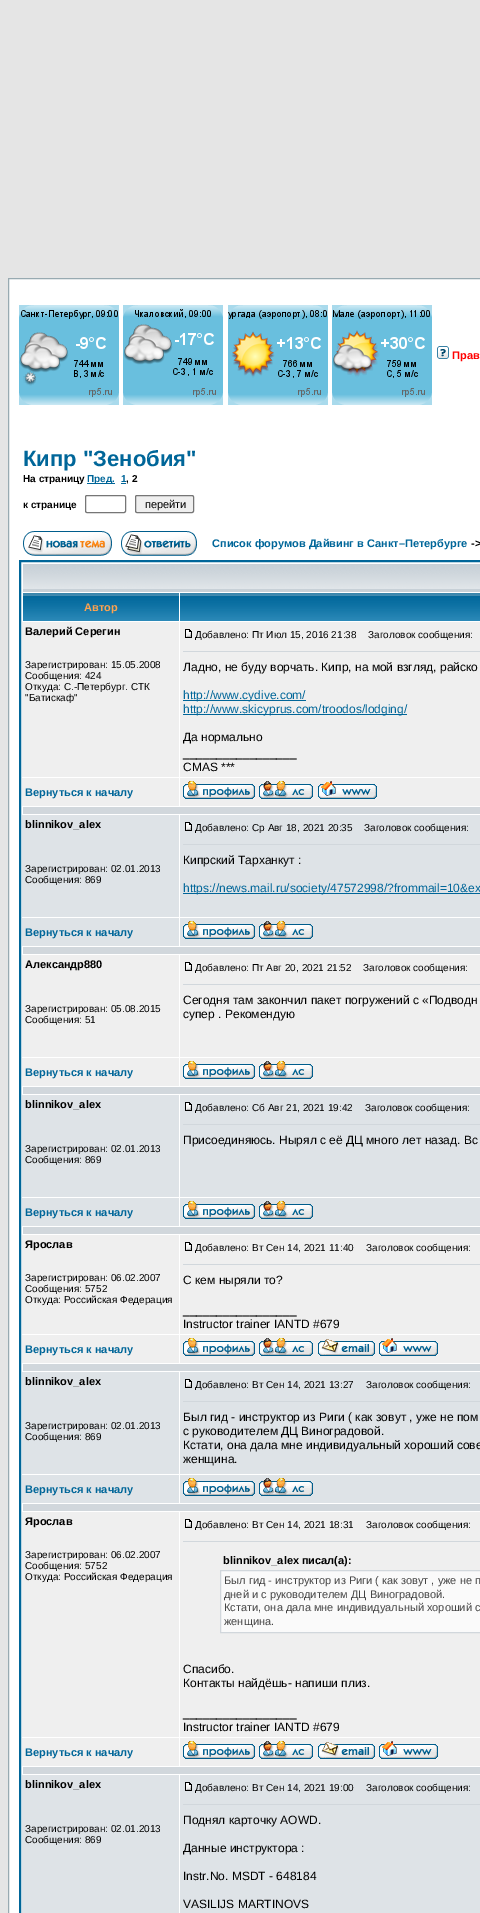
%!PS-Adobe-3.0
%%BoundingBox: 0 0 480 1913
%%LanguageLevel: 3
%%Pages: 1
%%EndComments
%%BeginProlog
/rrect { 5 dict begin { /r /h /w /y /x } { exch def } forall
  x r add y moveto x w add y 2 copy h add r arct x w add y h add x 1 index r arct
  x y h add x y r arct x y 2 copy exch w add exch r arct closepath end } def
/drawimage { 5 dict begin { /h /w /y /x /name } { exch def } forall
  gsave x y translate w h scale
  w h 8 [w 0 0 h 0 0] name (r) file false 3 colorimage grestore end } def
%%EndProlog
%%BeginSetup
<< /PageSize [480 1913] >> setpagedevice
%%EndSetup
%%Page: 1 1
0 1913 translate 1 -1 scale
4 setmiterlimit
0.898 setgray
0 0 480 1913 rectfill
1 setgray
newpath 8.5 278.5 moveto 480.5 278.5 lineto 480.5 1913.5 lineto 8.5 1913.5 lineto closepath gsave fill grestore
0.596 0.667 0.694 setrgbcolor
stroke
(images/1.raw) 19 305 100 100 drawimage
(images/2.raw) 123 305 100 100 drawimage
(images/3.raw) 228 305 100 100 drawimage
(images/4.raw) 332 305 100 100 drawimage
(images/5.raw) 437 346 12 13 drawimage
0 0.4 0.6 setrgbcolor
87 483 28 1 rectfill
121 483 5 1 rectfill
0.463 setgray
85.5 495.5 40 17 1.5 rrect stroke
0.937 setgray
135.5 495.5 58 17 1.5 rrect gsave fill grestore
0.463 setgray
stroke
(images/6.raw) 23 531 89 25 drawimage
(images/7.raw) 121 531 76 25 drawimage
0 0.4 0.6 setrgbcolor
2 setlinewidth
20 561 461 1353 rectstroke
(images/8.raw) 23 564 457 28 drawimage
(images/9.raw) 23 593 156 28 drawimage
(images/10.raw) 180 593 300 28 drawimage
0.937 setgray
22 622 157 155 rectfill
180 622 300 155 rectfill
(images/11.raw) 185 629 7 9 drawimage
0.82 0.843 0.863 setrgbcolor
183 651 297 1 rectfill
0 0.4 0.6 setrgbcolor
183 700 123 1 rectfill
183 714 224 1 rectfill
0.937 setgray
22 778 157 28 rectfill
180 778 300 28 rectfill
(images/12.raw) 183 781 72 18 drawimage
(images/13.raw) 259 781 54 18 drawimage
(images/14.raw) 318 781 59 18 drawimage
0.82 0.843 0.863 setrgbcolor
23 807 457 7 rectfill
0.871 0.89 0.906 setrgbcolor
22 815 157 102 rectfill
180 815 300 102 rectfill
(images/15.raw) 185 822 7 9 drawimage
0.82 0.843 0.863 setrgbcolor
183 844 297 1 rectfill
0 0.4 0.6 setrgbcolor
183 893 297 1 rectfill
0.871 0.89 0.906 setrgbcolor
22 918 157 28 rectfill
180 918 300 28 rectfill
(images/16.raw) 183 921 72 18 drawimage
(images/17.raw) 259 921 54 18 drawimage
0.82 0.843 0.863 setrgbcolor
23 947 457 7 rectfill
0.937 setgray
22 955 157 102 rectfill
180 955 300 102 rectfill
(images/11.raw) 185 962 7 9 drawimage
0.82 0.843 0.863 setrgbcolor
183 984 297 1 rectfill
0.937 setgray
22 1058 157 28 rectfill
180 1058 300 28 rectfill
(images/12.raw) 183 1061 72 18 drawimage
(images/13.raw) 259 1061 54 18 drawimage
0.82 0.843 0.863 setrgbcolor
23 1087 457 7 rectfill
0.871 0.89 0.906 setrgbcolor
22 1095 157 102 rectfill
180 1095 300 102 rectfill
(images/15.raw) 185 1102 7 9 drawimage
0.82 0.843 0.863 setrgbcolor
183 1124 297 1 rectfill
0.871 0.89 0.906 setrgbcolor
22 1198 157 28 rectfill
180 1198 300 28 rectfill
(images/16.raw) 183 1201 72 18 drawimage
(images/17.raw) 259 1201 54 18 drawimage
0.82 0.843 0.863 setrgbcolor
23 1227 457 7 rectfill
0.937 setgray
22 1235 157 99 rectfill
180 1235 300 99 rectfill
(images/11.raw) 185 1242 7 9 drawimage
0.82 0.843 0.863 setrgbcolor
183 1264 297 1 rectfill
0.937 setgray
22 1335 157 28 rectfill
180 1335 300 28 rectfill
(images/12.raw) 183 1338 72 18 drawimage
(images/13.raw) 259 1338 54 18 drawimage
(images/18.raw) 318 1339 57 17 drawimage
(images/14.raw) 379 1338 59 18 drawimage
0.82 0.843 0.863 setrgbcolor
23 1364 457 7 rectfill
0.871 0.89 0.906 setrgbcolor
22 1372 157 102 rectfill
180 1372 300 102 rectfill
(images/15.raw) 185 1379 7 9 drawimage
0.82 0.843 0.863 setrgbcolor
183 1401 297 1 rectfill
0.871 0.89 0.906 setrgbcolor
22 1475 157 28 rectfill
180 1475 300 28 rectfill
(images/16.raw) 183 1478 72 18 drawimage
(images/17.raw) 259 1478 54 18 drawimage
0.82 0.843 0.863 setrgbcolor
23 1504 457 7 rectfill
0.937 setgray
22 1512 157 225 rectfill
180 1512 300 225 rectfill
(images/11.raw) 185 1519 7 9 drawimage
0.82 0.843 0.863 setrgbcolor
183 1541 297 1 rectfill
0.98 setgray
newpath 220.5 1570.5 moveto 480.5 1570.5 lineto 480.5 1632.5 lineto 220.5 1632.5 lineto closepath gsave fill grestore
0.82 0.843 0.863 setrgbcolor
1 setlinewidth
stroke
0.937 setgray
22 1738 157 28 rectfill
180 1738 300 28 rectfill
(images/12.raw) 183 1741 72 18 drawimage
(images/13.raw) 259 1741 54 18 drawimage
(images/18.raw) 318 1742 57 17 drawimage
(images/14.raw) 379 1741 59 18 drawimage
0.82 0.843 0.863 setrgbcolor
23 1767 457 7 rectfill
0.871 0.89 0.906 setrgbcolor
22 1775 157 138 rectfill
180 1775 300 138 rectfill
(images/15.raw) 185 1782 7 9 drawimage
0.82 0.843 0.863 setrgbcolor
183 1804 297 1 rectfill
/LiberationSans-Bold [11 0 0 -11 0 0] selectfont
1 0 0 setrgbcolor
452 359 moveto (Прав) show
/LiberationSans-Bold [22 0 0 -22 0 0] selectfont
0 0.4 0.6 setrgbcolor
23 466 moveto (Кипр "Зенобия") show
/LiberationSans-Bold [10 0 0 -10 0 0] selectfont
0 setgray
23 482 moveto (На страницу) show
0 0.4 0.6 setrgbcolor
87 482 moveto (Пред.) show
121 482 moveto (1) show
0 setgray
126 482 moveto (, 2) show
23 508 moveto (к странице) show
/LiberationSans-Regular [11 0 0 -11 0 0] selectfont
145 508 moveto (перейти) show
/LiberationSans-Bold [11 0 0 -11 0 0] selectfont
0 0.4 0.6 setrgbcolor
212 547 moveto (Список форумов Дайвинг в Санкт–Петербурге) show
0 setgray
471 547 moveto (->) show
1 0.639 0.31 setrgbcolor
84 611 moveto (Автор) show
0 setgray
25 635 moveto (Валерий Серегин) show
/LiberationSans-Regular [10 0 0 -10 0 0] selectfont
25 668 moveto (Зарегистрирован: 15.05.2008) show
25 679 moveto (Сообщения: 424) show
25 690 moveto (Откуда: С.-Петербург. СТК) show
25 701 moveto ("Батискаф") show
195 638 moveto (Добавлено: Пт Июл 15, 2016 21:38) show
368 638 moveto (Заголовок сообщения:) show
/LiberationSans-Regular [12 0 0 -12 0 0] selectfont
183 671 moveto (Ладно, не буду ворчать. Кипр, на мой взгляд, райско) show
0 0.4 0.6 setrgbcolor
183 699 moveto (http://www.cydive.com/) show
183 713 moveto (http://www.skicyprus.com/troodos/lodging/) show
0 setgray
183 741 moveto (Да нормально) show
183 757 moveto (_________________) show
183 771 moveto (CMAS ***) show
/LiberationSans-Bold [11 0 0 -11 0 0] selectfont
0 0.4 0.6 setrgbcolor
25 796 moveto (Вернуться к началу) show
0 setgray
25 828 moveto (blinnikov_alex) show
/LiberationSans-Regular [10 0 0 -10 0 0] selectfont
25 872 moveto (Зарегистрирован: 02.01.2013) show
25 883 moveto (Сообщения: 869) show
195 831 moveto (Добавлено: Ср Авг 18, 2021 20:35) show
364 831 moveto (Заголовок сообщения:) show
/LiberationSans-Regular [12 0 0 -12 0 0] selectfont
183 864 moveto (Кипрский Тарханкут :) show
0 0.4 0.6 setrgbcolor
183 892 moveto (https://news.mail.ru/society/47572998/?frommail=10&ex) show
/LiberationSans-Bold [11 0 0 -11 0 0] selectfont
25 936 moveto (Вернуться к началу) show
0 setgray
25 968 moveto (Александр880) show
/LiberationSans-Regular [10 0 0 -10 0 0] selectfont
25 1012 moveto (Зарегистрирован: 05.08.2015) show
25 1023 moveto (Сообщения: 51) show
195 971 moveto (Добавлено: Пт Авг 20, 2021 21:52) show
363 971 moveto (Заголовок сообщения:) show
/LiberationSans-Regular [12 0 0 -12 0 0] selectfont
183 1004 moveto (Сегодня там закончил пакет погружений с «Подводн) show
183 1018 moveto (супер . Рекомендую) show
/LiberationSans-Bold [11 0 0 -11 0 0] selectfont
0 0.4 0.6 setrgbcolor
25 1076 moveto (Вернуться к началу) show
0 setgray
25 1108 moveto (blinnikov_alex) show
/LiberationSans-Regular [10 0 0 -10 0 0] selectfont
25 1152 moveto (Зарегистрирован: 02.01.2013) show
25 1163 moveto (Сообщения: 869) show
195 1111 moveto (Добавлено: Сб Авг 21, 2021 19:42) show
365 1111 moveto (Заголовок сообщения:) show
/LiberationSans-Regular [12 0 0 -12 0 0] selectfont
183 1144 moveto (Присоединяюсь. Нырял с её ДЦ много лет назад. Вс) show
/LiberationSans-Bold [11 0 0 -11 0 0] selectfont
0 0.4 0.6 setrgbcolor
25 1216 moveto (Вернуться к началу) show
0 setgray
25 1248 moveto (Ярослав) show
/LiberationSans-Regular [10 0 0 -10 0 0] selectfont
25 1281 moveto (Зарегистрирован: 06.02.2007) show
25 1292 moveto (Сообщения: 5752) show
25 1303 moveto (Откуда: Российская Федерация) show
195 1251 moveto (Добавлено: Вт Сен 14, 2021 11:40) show
366 1251 moveto (Заголовок сообщения:) show
/LiberationSans-Regular [12 0 0 -12 0 0] selectfont
183 1284 moveto (С кем ныряли то?) show
183 1314 moveto (_________________) show
183 1328 moveto (Instructor trainer IANTD #679) show
/LiberationSans-Bold [11 0 0 -11 0 0] selectfont
0 0.4 0.6 setrgbcolor
25 1353 moveto (Вернуться к началу) show
0 setgray
25 1385 moveto (blinnikov_alex) show
/LiberationSans-Regular [10 0 0 -10 0 0] selectfont
25 1429 moveto (Зарегистрирован: 02.01.2013) show
25 1440 moveto (Сообщения: 869) show
195 1388 moveto (Добавлено: Вт Сен 14, 2021 13:27) show
366 1388 moveto (Заголовок сообщения:) show
/LiberationSans-Regular [12 0 0 -12 0 0] selectfont
183 1421 moveto (Был гид - инструктор из Риги \( как зовут , уже не пом) show
183 1435 moveto (с руководителем ДЦ Виноградовой.) show
183 1449 moveto (Кстати, она дала мне индивидуальный хороший сове) show
183 1463 moveto (женщина.) show
/LiberationSans-Bold [11 0 0 -11 0 0] selectfont
0 0.4 0.6 setrgbcolor
25 1493 moveto (Вернуться к началу) show
0 setgray
25 1525 moveto (Ярослав) show
/LiberationSans-Regular [10 0 0 -10 0 0] selectfont
25 1558 moveto (Зарегистрирован: 06.02.2007) show
25 1569 moveto (Сообщения: 5752) show
25 1580 moveto (Откуда: Российская Федерация) show
195 1528 moveto (Добавлено: Вт Сен 14, 2021 18:31) show
366 1528 moveto (Заголовок сообщения:) show
/LiberationSans-Bold [11 0 0 -11 0 0] selectfont
223 1564 moveto (blinnikov_alex писал\(а\):) show
/LiberationSans-Regular [11 0 0 -11 0 0] selectfont
0.267 setgray
224 1584 moveto (Был гид - инструктор из Риги \( как зовут , уже не п) show
224 1598 moveto (дней и с руководителем ДЦ Виноградовой.) show
224 1611 moveto (Кстати, она дала мне индивидуальный хороший с) show
224 1625 moveto (женщина.) show
/LiberationSans-Regular [12 0 0 -12 0 0] selectfont
0 setgray
183 1673 moveto (Спасибо.) show
183 1687 moveto (Контакты найдёшь- напиши плиз.) show
183 1717 moveto (_________________) show
183 1731 moveto (Instructor trainer IANTD #679) show
/LiberationSans-Bold [11 0 0 -11 0 0] selectfont
0 0.4 0.6 setrgbcolor
25 1756 moveto (Вернуться к началу) show
0 setgray
25 1788 moveto (blinnikov_alex) show
/LiberationSans-Regular [10 0 0 -10 0 0] selectfont
25 1832 moveto (Зарегистрирован: 02.01.2013) show
25 1843 moveto (Сообщения: 869) show
195 1791 moveto (Добавлено: Вт Сен 14, 2021 19:00) show
366 1791 moveto (Заголовок сообщения:) show
/LiberationSans-Regular [12 0 0 -12 0 0] selectfont
183 1824 moveto (Поднял карточку AOWD.) show
183 1852 moveto (Данные инструктора :) show
183 1880 moveto (Instr.No. MSDT - 648184) show
183 1908 moveto (VASILIJS MARTINOVS) show
showpage
%%EOF
